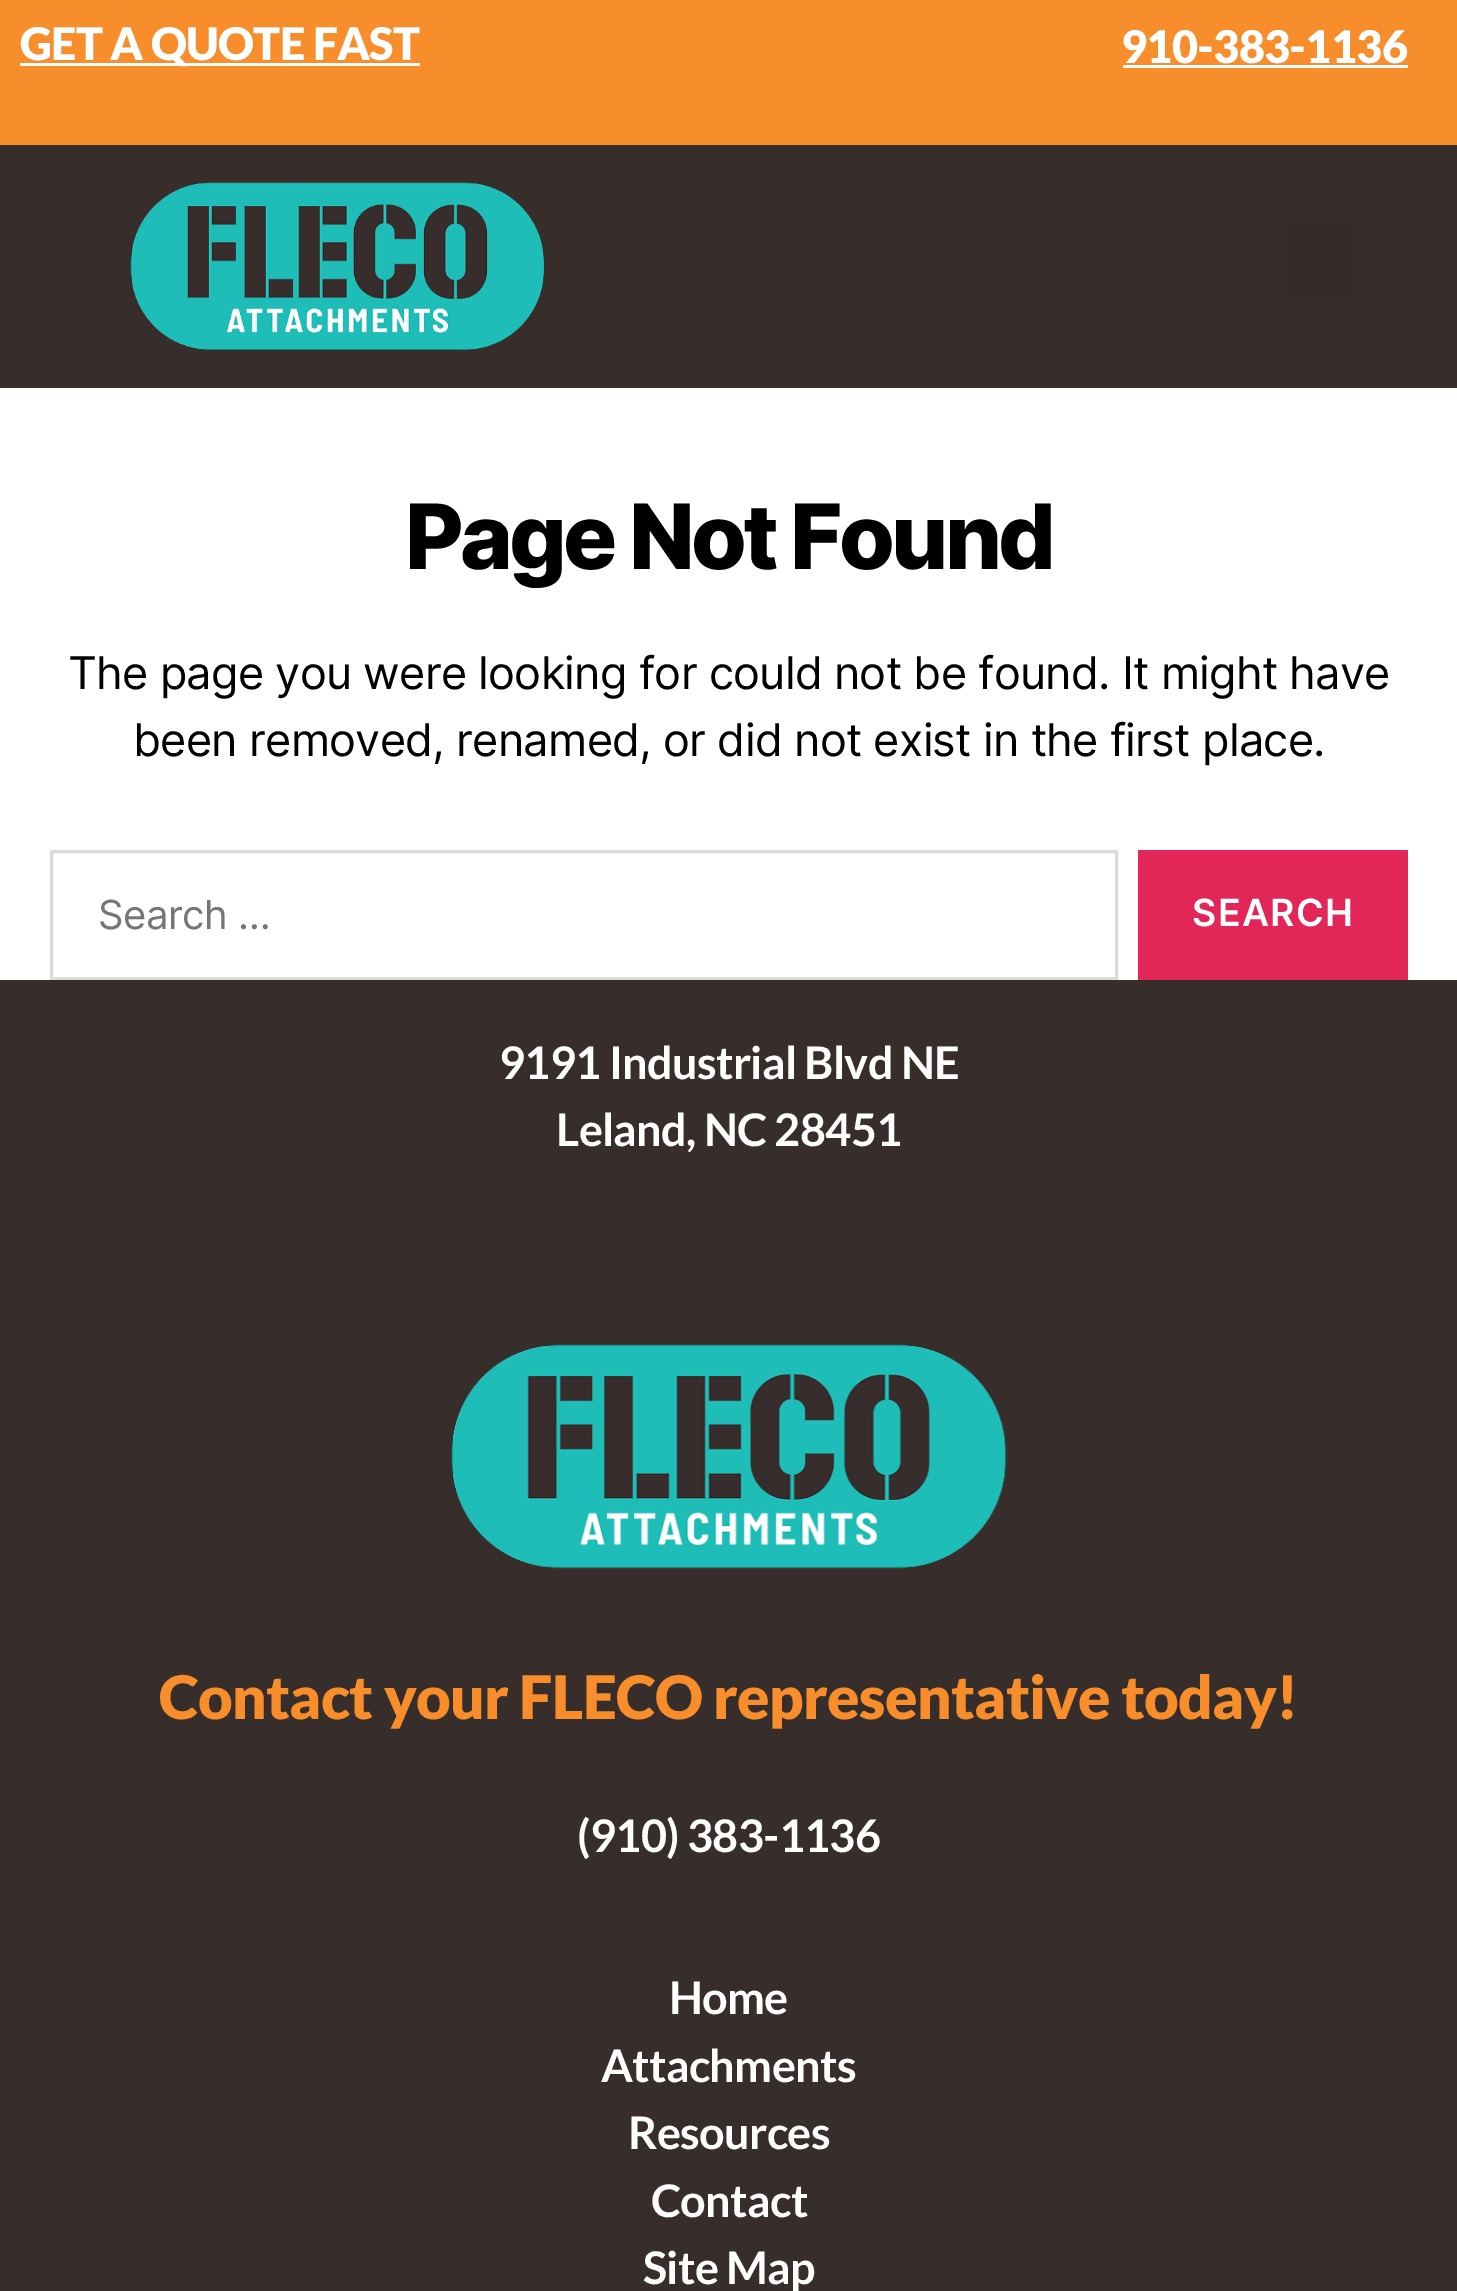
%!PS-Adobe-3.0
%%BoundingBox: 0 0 1457 2291
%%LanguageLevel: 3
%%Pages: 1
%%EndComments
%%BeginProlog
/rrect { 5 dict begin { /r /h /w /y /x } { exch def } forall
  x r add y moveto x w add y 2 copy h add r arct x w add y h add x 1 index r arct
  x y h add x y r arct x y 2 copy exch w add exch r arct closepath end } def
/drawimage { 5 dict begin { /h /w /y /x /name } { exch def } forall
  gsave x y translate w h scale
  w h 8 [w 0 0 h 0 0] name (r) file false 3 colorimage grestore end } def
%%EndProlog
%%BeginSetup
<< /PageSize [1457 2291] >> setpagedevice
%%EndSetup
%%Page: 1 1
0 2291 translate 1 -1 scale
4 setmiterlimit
1 setgray
0 0 1457 2291 rectfill
0.969 0.553 0.169 setrgbcolor
0 0 1457 145 rectfill
1 setgray
20 63 400 3 rectfill
1123 65 285 3 rectfill
0.216 0.18 0.173 setrgbcolor
0 145 1457 243 rectfill
(images/1.raw) 130 182 414 168 drawimage
0.204 0.173 0.165 setrgbcolor
1288 218 70 82 8 rrect fill
0.859 setgray
3 setlinewidth
51.5 851.5 1065 127 rectstroke
0.886 0.149 0.345 setrgbcolor
1138 850 270 130 rectfill
0.216 0.18 0.173 setrgbcolor
0 980 1457 1311 rectfill
(images/2.raw) 451 1344 555 225 drawimage
/Lato-Black [45 0 0 -45 0 0] selectfont
1 setgray
20 60 moveto -0.68 0 (GET A QUOTE FAST) ashow
1121 63 moveto -0.68 0 (910-383-1136) ashow
/Inter-ExtraBold [90 0 0 -90 0 0] selectfont
0 setgray
405 569 moveto -3.75 0 (Page Not Found) ashow
/Inter-Regular [45 0 0 -45 0 0] selectfont
68 689 moveto -0.68 0 (The page you were looking for could not be found. It might have) ashow
133 756 moveto -0.68 0 (been removed, renamed, or did not exist in the first place.) ashow
/Inter-Regular [40 0 0 -40 0 0] selectfont
0.459 setgray
98 929 moveto -0.5 0 (Search …) ashow
/Inter-SemiBold [37.5 0 0 -37.5 0 0] selectfont
1 setgray
1192 926 moveto 1.25 0 (SEARCH) ashow
/Lato-Bold [45 0 0 -45 0 0] selectfont
499 1079 moveto -0.68 0 (9191 Industrial Blvd NE) ashow
556 1146 moveto -0.68 0 (Leland, NC 28451) ashow
/Lato-Black [60 0 0 -60 0 0] selectfont
0.969 0.553 0.169 setrgbcolor
159 1719 moveto -0.68 0 (Contact your FLECO representative today!) ashow
/Lato-Bold [45 0 0 -45 0 0] selectfont
1 setgray
577 1852 moveto -0.68 0 (\(910\) 383-1136) ashow
669 2014 moveto -0.68 0 (Home) ashow
601 2082 moveto -0.68 0 (Attachments) ashow
628 2149 moveto -0.68 0 (Resources) ashow
651 2217 moveto -0.68 0 (Contact) ashow
643 2284 moveto -0.68 0 (Site Map) ashow
showpage
%%EOF
